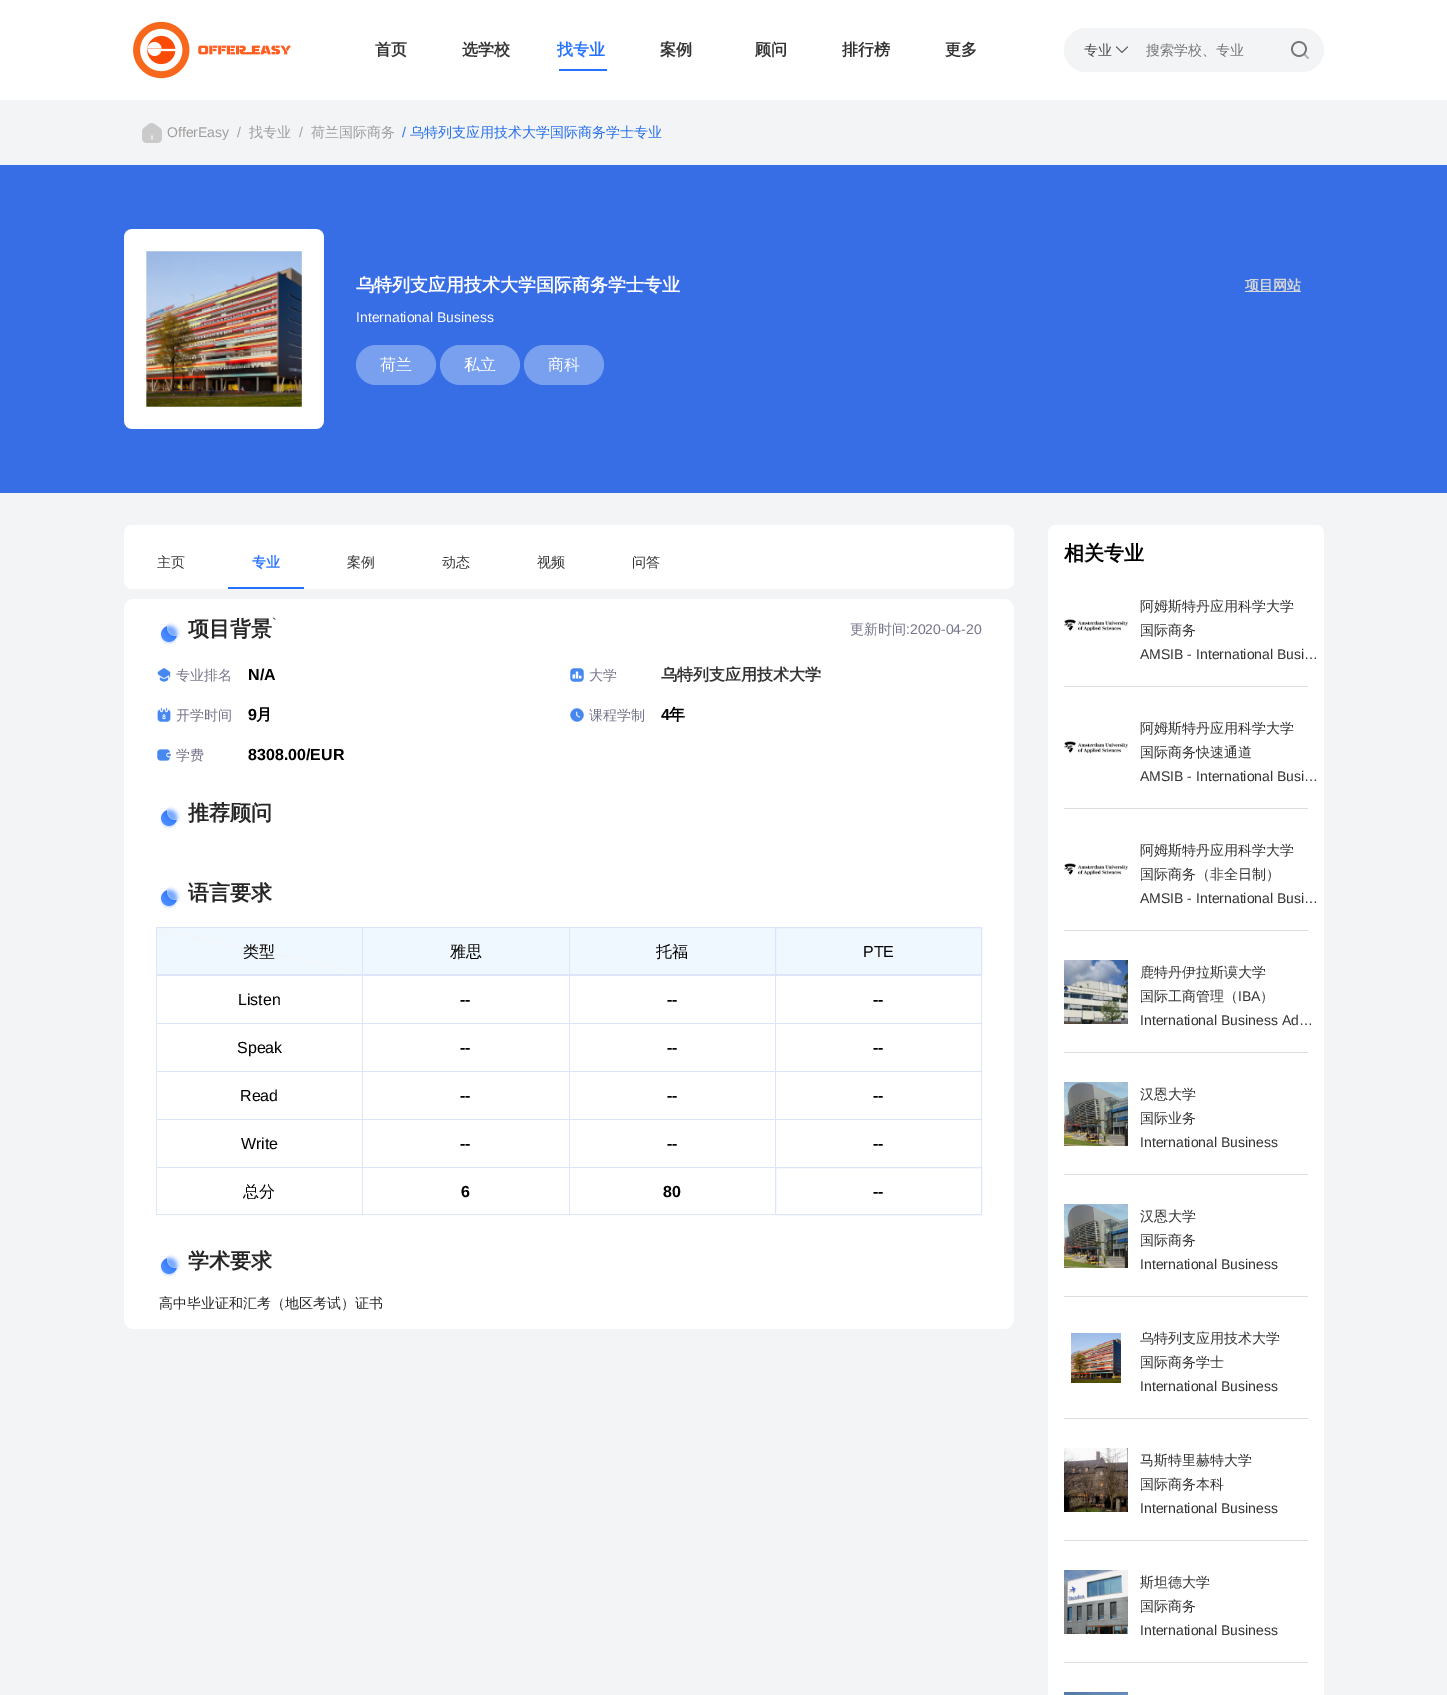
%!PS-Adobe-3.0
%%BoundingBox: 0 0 1447 1695
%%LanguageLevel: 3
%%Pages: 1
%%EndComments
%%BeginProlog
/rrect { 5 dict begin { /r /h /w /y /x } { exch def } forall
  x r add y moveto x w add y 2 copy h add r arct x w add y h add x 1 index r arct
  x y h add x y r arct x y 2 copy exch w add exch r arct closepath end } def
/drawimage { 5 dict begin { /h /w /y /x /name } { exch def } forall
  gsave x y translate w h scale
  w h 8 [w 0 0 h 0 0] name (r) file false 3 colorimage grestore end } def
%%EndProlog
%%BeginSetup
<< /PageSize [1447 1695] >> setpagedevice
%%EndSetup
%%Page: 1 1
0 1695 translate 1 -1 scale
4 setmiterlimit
1 setgray
0 0 1447 1695 rectfill
(images/1.raw) 133 21 158 58 drawimage
0.141 0.447 1 setrgbcolor
559 69 48 2 rectfill
0.953 0.957 0.965 setrgbcolor
1064 28 260 44 22 rrect fill
(images/2.raw) 1115 46 13 7 drawimage
(images/3.raw) 1291 41 18 18 drawimage
0 100 1447 65 rectfill
(images/4.raw) 142 123 20 20 drawimage
0.216 0.427 0.898 setrgbcolor
0 165 1447 328 rectfill
(images/5.raw) 124 229 200 200 drawimage
0.847 setgray
1245 291 56 1 rectfill
0.471 0.627 0.933 setrgbcolor
356 345 80 40 20 rrect fill
440 345 80 40 20 rrect fill
524 345 80 40 20 rrect fill
0.953 0.957 0.965 setrgbcolor
0 493 1447 1202 rectfill
1 setgray
124 525 890 64 8 rrect fill
0.141 0.447 1 setrgbcolor
228 587 76 2 rectfill
1 setgray
124 599 890 730 10 rrect fill
(images/6.raw) 160 622 21 23 drawimage
(images/7.raw) 157 668 14 14 drawimage
(images/8.raw) 570 668 14 14 drawimage
(images/9.raw) 157 707 14 15 drawimage
(images/10.raw) 570 708 14 14 drawimage
(images/11.raw) 157 749 14 12 drawimage
(images/6.raw) 160 806 21 23 drawimage
(images/6.raw) 160 886 21 23 drawimage
0.941 0.973 1 setrgbcolor
363 928 618 46 rectfill
gsave newpath 157 928 moveto 362 928 lineto 362 974 lineto 157 974 lineto closepath clip newpath
<< /ShadingType 2 /ColorSpace /DeviceRGB /Coords [250 995 269 907] /Extend [true true] /Function << /FunctionType 3 /Domain [0 1] /Functions [<< /FunctionType 2 /Domain [0 1] /C0 [0.941 0.973 1] /C1 [0.941 0.973 1] /N 1 >> << /FunctionType 2 /Domain [0 1] /C0 [0.941 0.973 1] /C1 [0.953 0.957 0.961] /N 1 >> << /FunctionType 2 /Domain [0 1] /C0 [0.953 0.957 0.961] /C1 [0.941 0.973 1] /N 1 >> << /FunctionType 2 /Domain [0 1] /C0 [0.941 0.973 1] /C1 [0.941 0.973 1] /N 1 >>] /Bounds [0.49 0.5 0.51] /Encode [0 1 0 1 0 1 0 1] >> >> shfill grestore
0.863 0.898 0.98 setrgbcolor
156 927 619 1 rectfill
156 974 619 1 rectfill
156 927 1 48 rectfill
362 927 1 48 rectfill
569 927 1 48 rectfill
775.5 927.5 206 47 rectstroke
156 975 826 1 rectfill
156 975 1 48 rectfill
362 975 1 48 rectfill
569 975 1 48 rectfill
981 975 1 48 rectfill
775 975 1 48 rectfill
156 1023 826 1 rectfill
156 1023 1 48 rectfill
362 1023 1 48 rectfill
569 1023 1 48 rectfill
981 1023 1 48 rectfill
775 1023 1 48 rectfill
156 1071 826 1 rectfill
156 1071 1 48 rectfill
362 1071 1 48 rectfill
569 1071 1 48 rectfill
981 1071 1 48 rectfill
775 1071 1 48 rectfill
156 1119 826 1 rectfill
156 1119 1 48 rectfill
362 1119 1 48 rectfill
569 1119 1 48 rectfill
981 1119 1 48 rectfill
775 1119 1 48 rectfill
156 1167 619 1 rectfill
156 1214 619 1 rectfill
156 1167 1 48 rectfill
362 1167 1 48 rectfill
569 1167 1 48 rectfill
775.5 1167.5 206 47 rectstroke
(images/6.raw) 160 1254 21 23 drawimage
1 setgray
1048 525 276 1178 8 rrect fill
0.867 setgray
1064 686 244 1 rectfill
(images/12.raw) 1064 619 64 12 drawimage
1064 808 244 1 rectfill
(images/12.raw) 1064 741 64 12 drawimage
1064 930 244 1 rectfill
(images/12.raw) 1064 863 64 12 drawimage
1064 1052 244 1 rectfill
(images/13.raw) 1064 960 64 64 drawimage
1064 1174 244 1 rectfill
(images/14.raw) 1064 1082 64 64 drawimage
1064 1296 244 1 rectfill
(images/14.raw) 1064 1204 64 64 drawimage
1064 1418 244 1 rectfill
(images/15.raw) 1071 1333 50 50 drawimage
1064 1540 244 1 rectfill
(images/16.raw) 1064 1448 64 64 drawimage
1064 1662 244 1 rectfill
(images/17.raw) 1064 1570 64 64 drawimage
(images/18.raw) 1064 1692 64 3 drawimage
/WenQuanYiZenHei-Bold [16 0 0 -16 0 0] selectfont
0.2 setgray
375 55 moveto (首页) show
462 55 moveto (选学校) show
0.141 0.447 1 setrgbcolor
557 55 moveto (找专业) show
0.2 setgray
660 55 moveto (案例) show
755 55 moveto (顾问) show
842 55 moveto (排行榜) show
945 55 moveto (更多) show
/WenQuanYiZenHei-Medium [14 0 0 -14 0 0] selectfont
0.294 setgray
1084 55 moveto (专业) show
0.459 setgray
1146 55 moveto (搜索学校、专业) show
/LiberationSans-Regular [14 0 0 -14 0 0] selectfont
0.62 setgray
167 137 moveto (OfferEasy) show
237 137 moveto (/) show
/WenQuanYiZenHei-Medium [14 0 0 -14 0 0] selectfont
249 137 moveto (找专业) show
/LiberationSans-Regular [14 0 0 -14 0 0] selectfont
299 137 moveto (/) show
/WenQuanYiZenHei-Medium [14 0 0 -14 0 0] selectfont
311 137 moveto (荷兰国际商务) show
/LiberationSans-Regular [14 0 0 -14 0 0] selectfont
0.149 0.435 0.91 setrgbcolor
402 137 moveto (/) show
/WenQuanYiZenHei-Medium [14 0 0 -14 0 0] selectfont
410 137 moveto (乌特列支应用技术大学国际商务学士专业) show
/WenQuanYiZenHei-Bold [18 0 0 -18 0 0] selectfont
1 setgray
356 291 moveto (乌特列支应用技术大学国际商务学士专业) show
/WenQuanYiZenHei-Bold [14 0 0 -14 0 0] selectfont
0.847 setgray
1245 290 moveto (项目网站) show
/LiberationSans-Regular [14 0 0 -14 0 0] selectfont
1 setgray
356 322 moveto (International Business) show
/WenQuanYiZenHei-Medium [16 0 0 -16 0 0] selectfont
380 370 moveto (荷兰) show
464 370 moveto (私立) show
548 370 moveto (商科) show
/WenQuanYiZenHei-Medium [14 0 0 -14 0 0] selectfont
0.2 setgray
157 567 moveto (主页) show
/WenQuanYiZenHei-Bold [14 0 0 -14 0 0] selectfont
0.141 0.447 1 setrgbcolor
252 567 moveto (专业) show
/WenQuanYiZenHei-Medium [14 0 0 -14 0 0] selectfont
0.2 setgray
347 567 moveto (案例) show
442 567 moveto (动态) show
537 567 moveto (视频) show
632 567 moveto (问答) show
/WenQuanYiZenHei-Bold [21 0 0 -21 0 0] selectfont
0.149 setgray
188 636 moveto (项目背景) show
/LiberationSans-Regular [14 0 0 -14 0 0] selectfont
272 628 moveto (`) show
/WenQuanYiZenHei-Medium [14 0 0 -14 0 0] selectfont
0.459 0.459 0.549 setrgbcolor
850 634 moveto (更新时间) show
/LiberationSans-Regular [14 0 0 -14 0 0] selectfont
906 634 moveto (:2020-04-20) show
/WenQuanYiZenHei-Medium [14 0 0 -14 0 0] selectfont
176 680 moveto (专业排名) show
/LiberationSans-Bold [16 0 0 -16 0 0] selectfont
0 setgray
248 680 moveto (N/A) show
/WenQuanYiZenHei-Medium [14 0 0 -14 0 0] selectfont
0.459 0.459 0.549 setrgbcolor
589 680 moveto (大学) show
/WenQuanYiZenHei-Bold [16 0 0 -16 0 0] selectfont
0.2 setgray
661 680 moveto (乌特列支应用技术大学) show
/WenQuanYiZenHei-Medium [14 0 0 -14 0 0] selectfont
0.459 0.459 0.549 setrgbcolor
176 720 moveto (开学时间) show
/LiberationSans-Bold [16 0 0 -16 0 0] selectfont
0 setgray
248 720 moveto (9) show
/WenQuanYiZenHei-Bold [16 0 0 -16 0 0] selectfont
256 720 moveto (月) show
/WenQuanYiZenHei-Medium [14 0 0 -14 0 0] selectfont
0.459 0.459 0.549 setrgbcolor
589 720 moveto (课程学制) show
/LiberationSans-Bold [16 0 0 -16 0 0] selectfont
0 setgray
661 720 moveto (4) show
/WenQuanYiZenHei-Bold [16 0 0 -16 0 0] selectfont
669 720 moveto (年) show
/WenQuanYiZenHei-Medium [14 0 0 -14 0 0] selectfont
0.459 0.459 0.549 setrgbcolor
176 760 moveto (学费) show
/LiberationSans-Bold [16 0 0 -16 0 0] selectfont
0 setgray
248 760 moveto (8308.00/EUR) show
/WenQuanYiZenHei-Bold [21 0 0 -21 0 0] selectfont
0.149 setgray
188 820 moveto (推荐顾问) show
188 900 moveto (语言要求) show
/WenQuanYiZenHei-Medium [16 0 0 -16 0 0] selectfont
0 setgray
243 957 moveto (类型) show
450 957 moveto (雅思) show
656 957 moveto (托福) show
/LiberationSans-Regular [16 0 0 -16 0 0] selectfont
863 957 moveto (PTE) show
238 1005 moveto (Listen) show
/LiberationSans-Bold [16 0 0 -16 0 0] selectfont
460 1005 moveto (--) show
667 1005 moveto (--) show
873 1005 moveto (--) show
/LiberationSans-Regular [16 0 0 -16 0 0] selectfont
237 1053 moveto (Speak) show
/LiberationSans-Bold [16 0 0 -16 0 0] selectfont
460 1053 moveto (--) show
667 1053 moveto (--) show
873 1053 moveto (--) show
/LiberationSans-Regular [16 0 0 -16 0 0] selectfont
240 1101 moveto (Read) show
/LiberationSans-Bold [16 0 0 -16 0 0] selectfont
460 1101 moveto (--) show
667 1101 moveto (--) show
873 1101 moveto (--) show
/LiberationSans-Regular [16 0 0 -16 0 0] selectfont
241 1149 moveto (Write) show
/LiberationSans-Bold [16 0 0 -16 0 0] selectfont
460 1149 moveto (--) show
667 1149 moveto (--) show
873 1149 moveto (--) show
/WenQuanYiZenHei-Medium [16 0 0 -16 0 0] selectfont
243 1197 moveto (总分) show
/LiberationSans-Bold [16 0 0 -16 0 0] selectfont
461 1197 moveto (6) show
663 1197 moveto (80) show
873 1197 moveto (--) show
/WenQuanYiZenHei-Bold [21 0 0 -21 0 0] selectfont
0.149 setgray
188 1268 moveto (学术要求) show
/WenQuanYiZenHei-Medium [14 0 0 -14 0 0] selectfont
159 1308 moveto (高中毕业证和汇考（地区考试）证书) show
/WenQuanYiZenHei-Bold [20 0 0 -20 0 0] selectfont
0 setgray
1064 560 moveto (相关专业) show
/WenQuanYiZenHei-Medium [14 0 0 -14 0 0] selectfont
0.2 setgray
1140 611 moveto (阿姆斯特丹应用科学大学) show
1140 635 moveto (国际商务) show
/LiberationSans-Regular [14 0 0 -14 0 0] selectfont
1140 659 moveto (AMSIB - International Busi…) show
/WenQuanYiZenHei-Medium [14 0 0 -14 0 0] selectfont
1140 733 moveto (阿姆斯特丹应用科学大学) show
1140 757 moveto (国际商务快速通道) show
/LiberationSans-Regular [14 0 0 -14 0 0] selectfont
1140 781 moveto (AMSIB - International Busi…) show
/WenQuanYiZenHei-Medium [14 0 0 -14 0 0] selectfont
1140 855 moveto (阿姆斯特丹应用科学大学) show
1140 879 moveto (国际商务（非全日制）) show
/LiberationSans-Regular [14 0 0 -14 0 0] selectfont
1140 903 moveto (AMSIB - International Busi…) show
/WenQuanYiZenHei-Medium [14 0 0 -14 0 0] selectfont
1140 977 moveto (鹿特丹伊拉斯谟大学) show
1140 1001 moveto (国际工商管理（) show
/LiberationSans-Regular [14 0 0 -14 0 0] selectfont
1238 1001 moveto (IBA) show
/WenQuanYiZenHei-Medium [14 0 0 -14 0 0] selectfont
1260 1001 moveto (）) show
/LiberationSans-Regular [14 0 0 -14 0 0] selectfont
1140 1025 moveto (International Business Ad…) show
/WenQuanYiZenHei-Medium [14 0 0 -14 0 0] selectfont
1140 1099 moveto (汉恩大学) show
1140 1123 moveto (国际业务) show
/LiberationSans-Regular [14 0 0 -14 0 0] selectfont
1140 1147 moveto (International Business) show
/WenQuanYiZenHei-Medium [14 0 0 -14 0 0] selectfont
1140 1221 moveto (汉恩大学) show
1140 1245 moveto (国际商务) show
/LiberationSans-Regular [14 0 0 -14 0 0] selectfont
1140 1269 moveto (International Business) show
/WenQuanYiZenHei-Medium [14 0 0 -14 0 0] selectfont
1140 1343 moveto (乌特列支应用技术大学) show
1140 1367 moveto (国际商务学士) show
/LiberationSans-Regular [14 0 0 -14 0 0] selectfont
1140 1391 moveto (International Business) show
/WenQuanYiZenHei-Medium [14 0 0 -14 0 0] selectfont
1140 1465 moveto (马斯特里赫特大学) show
1140 1489 moveto (国际商务本科) show
/LiberationSans-Regular [14 0 0 -14 0 0] selectfont
1140 1513 moveto (International Business) show
/WenQuanYiZenHei-Medium [14 0 0 -14 0 0] selectfont
1140 1587 moveto (斯坦德大学) show
1140 1611 moveto (国际商务) show
/LiberationSans-Regular [14 0 0 -14 0 0] selectfont
1140 1635 moveto (International Business) show
showpage
%%EOF
